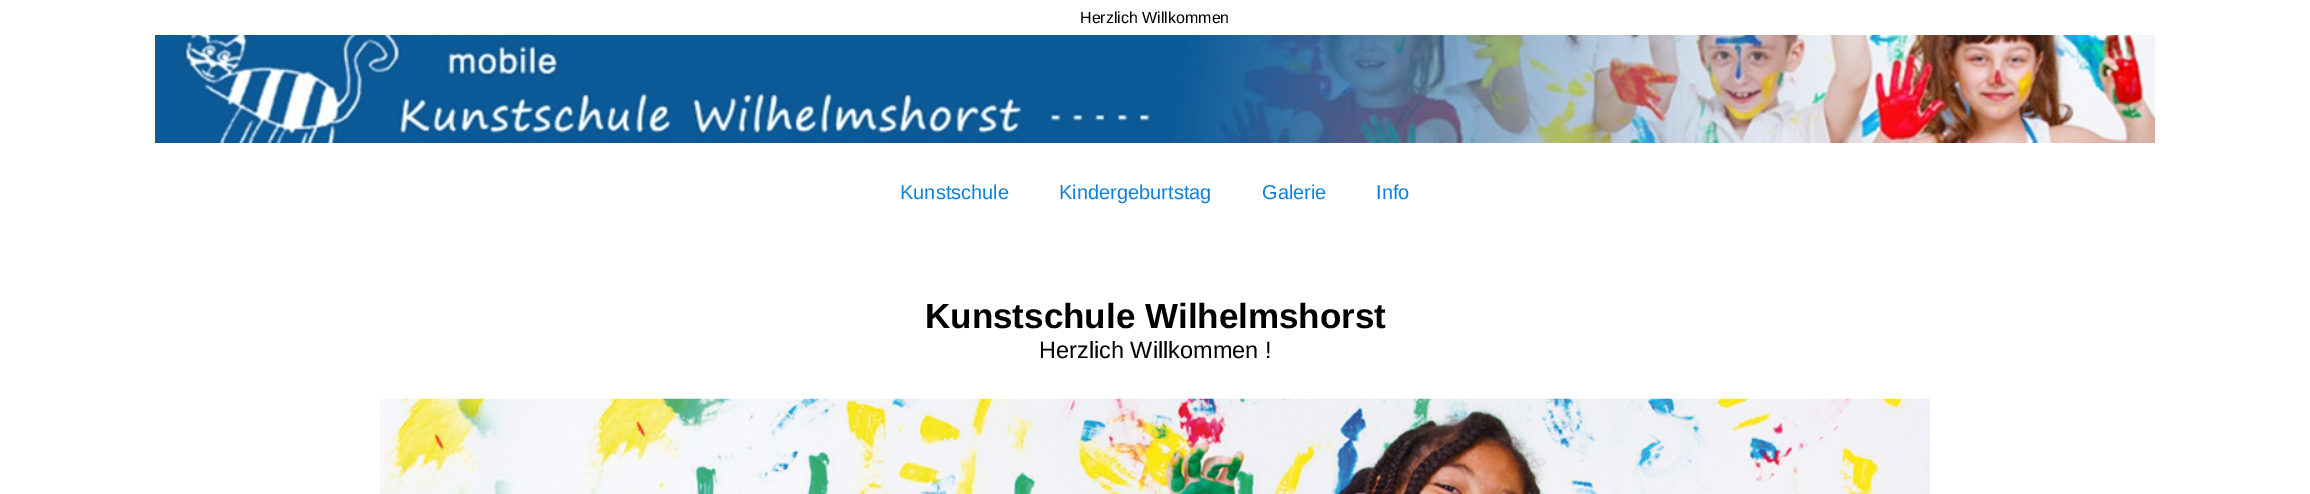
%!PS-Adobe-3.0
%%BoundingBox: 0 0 2310 494
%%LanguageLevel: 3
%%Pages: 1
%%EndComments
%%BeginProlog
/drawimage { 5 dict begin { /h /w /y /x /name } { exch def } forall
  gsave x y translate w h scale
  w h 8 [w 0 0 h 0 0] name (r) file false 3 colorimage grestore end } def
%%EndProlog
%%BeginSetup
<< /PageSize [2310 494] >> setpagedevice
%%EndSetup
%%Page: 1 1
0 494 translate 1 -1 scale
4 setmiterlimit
1 setgray
0 0 2310 494 rectfill
(images/1.raw) 155 35 2000 108 drawimage
(images/2.raw) 380 398 1550 96 drawimage
/LiberationSans-Regular [16 0 0 -16 0 0] selectfont
0 setgray
1080 23 moveto (Herzlich Willkommen) show
/LiberationSans-Regular [20 0 0 -20 0 0] selectfont
0.055 0.502 0.859 setrgbcolor
900 199 moveto (Kunstschule) show
1059 199 moveto (Kindergeburtstag) show
1262 199 moveto (Galerie) show
1376 199 moveto (Info) show
/LiberationSans-Bold [35 0 0 -35 0 0] selectfont
0 setgray
925 328 moveto (Kunstschule Wilhelmshorst) show
/LiberationSans-Regular [23.5 0 0 -23.5 0 0] selectfont
1039 358 moveto (Herzlich Willkommen !) show
showpage
%%EOF
